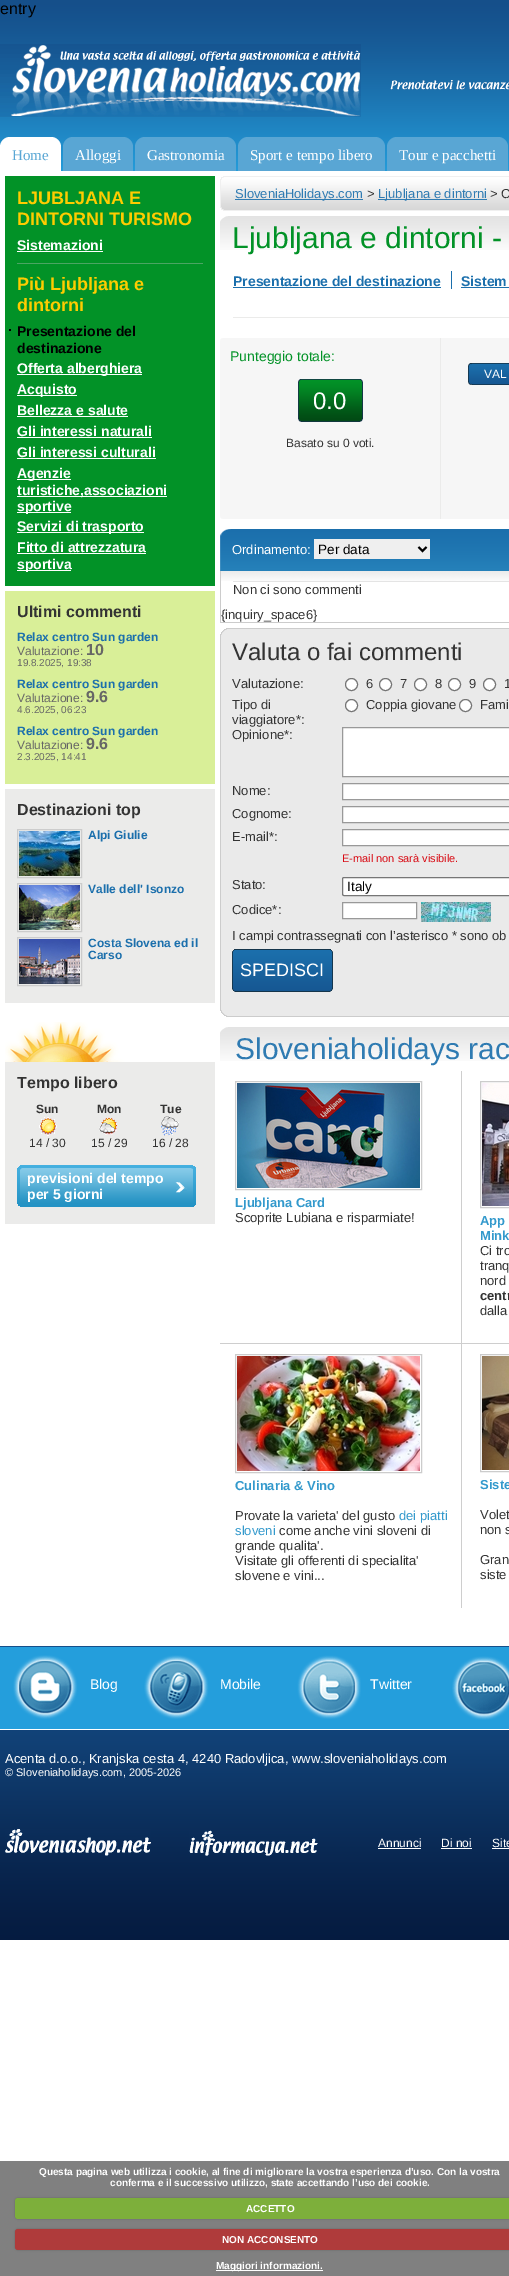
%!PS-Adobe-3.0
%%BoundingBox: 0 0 509 2276
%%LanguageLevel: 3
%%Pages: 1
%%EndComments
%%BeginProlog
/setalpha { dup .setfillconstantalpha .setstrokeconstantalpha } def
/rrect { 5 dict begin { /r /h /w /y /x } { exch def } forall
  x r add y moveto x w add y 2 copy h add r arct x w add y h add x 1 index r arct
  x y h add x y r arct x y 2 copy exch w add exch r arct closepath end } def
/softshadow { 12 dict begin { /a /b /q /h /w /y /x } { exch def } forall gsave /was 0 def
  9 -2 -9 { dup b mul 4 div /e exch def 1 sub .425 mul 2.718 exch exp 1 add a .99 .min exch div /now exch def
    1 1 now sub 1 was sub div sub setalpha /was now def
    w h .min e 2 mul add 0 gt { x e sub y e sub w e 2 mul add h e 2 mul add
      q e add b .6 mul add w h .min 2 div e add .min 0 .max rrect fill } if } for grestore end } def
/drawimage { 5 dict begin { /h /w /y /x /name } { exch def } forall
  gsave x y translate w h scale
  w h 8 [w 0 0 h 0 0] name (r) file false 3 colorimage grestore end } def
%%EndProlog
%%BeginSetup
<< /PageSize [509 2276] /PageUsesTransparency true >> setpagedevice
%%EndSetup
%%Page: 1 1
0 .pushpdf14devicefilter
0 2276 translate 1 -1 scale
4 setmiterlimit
1 setgray
0 0 509 2276 rectfill
(images/1.raw) 0 0 509 171 drawimage
(images/2.raw) 0 44 361 73 drawimage
(images/3.raw) 390 80 119 10 drawimage
newpath 10 137 moveto 51 137 lineto 56.5 137 61 141.5 61 147 curveto 61 171 lineto 0 171 lineto 0 147 lineto 0 141.5 4.5 137 10 137 curveto closepath fill
0.349 0.651 0.831 setrgbcolor
newpath 73 137 moveto 123 137 lineto 128.5 137 133 141.5 133 147 curveto 133 171 lineto 63 171 lineto 63 147 lineto 63 141.5 67.5 137 73 137 curveto closepath fill
newpath 145 137 moveto 226 137 lineto 231.5 137 236 141.5 236 147 curveto 236 171 lineto 135 171 lineto 135 147 lineto 135 141.5 139.5 137 145 137 curveto closepath fill
newpath 248 137 moveto 375 137 lineto 380.5 137 385 141.5 385 147 curveto 385 171 lineto 238 171 lineto 238 147 lineto 238 141.5 242.5 137 248 137 curveto closepath fill
newpath 397 137 moveto 498 137 lineto 503.5 137 508 141.5 508 147 curveto 508 171 lineto 387 171 lineto 387 147 lineto 387 141.5 391.5 137 397 137 curveto closepath fill
0.008 0.573 0.153 setrgbcolor
5 176 210 410 rectfill
1 setgray
17 251 86 1 rectfill
0.294 0.647 0.388 setrgbcolor
17 263 186 1 rectfill
0 setgray
9 329 2 2 rectfill
1 setgray
17 374 125 1 rectfill
17 395 60 1 rectfill
17 416 111 1 rectfill
17 437 135 1 rectfill
17 458 139 1 rectfill
17 479 54 1 rectfill
17 496 150 1 rectfill
17 512 54 1 rectfill
17 532 127 1 rectfill
17 553 129 1 rectfill
17 570 54 1 rectfill
0.851 0.937 0.596 setrgbcolor
5 591 210 193 rectfill
0.922 0.922 0.918 setrgbcolor
5 789 210 214 rectfill
0.8 setgray
17.5 829.5 64 48 rectstroke
(images/4.raw) 19 831 61 45 drawimage
17.5 883.5 64 48 rectstroke
(images/5.raw) 19 885 61 45 drawimage
17.5 937.5 64 48 rectstroke
(images/6.raw) 19 939 61 45 drawimage
0.922 0.922 0.918 setrgbcolor
5 1062 210 162 rectfill
(images/7.raw) 5 1022 210 40 drawimage
(images/8.raw) 39 1117 18 19 drawimage
(images/9.raw) 99 1117 18 18 drawimage
(images/10.raw) 161 1116 18 20 drawimage
(images/11.raw) 17 1165 179 42 drawimage
(images/12.raw) 220 176 289 35 drawimage
0.184 0.482 0.698 setrgbcolor
235 199 128 1 rectfill
378 199 109 1 rectfill
(images/13.raw) 220 216 289 34 drawimage
0.922 0.922 0.918 setrgbcolor
233 317 276 1 rectfill
0.106 0.435 0.675 setrgbcolor
233 287 208 1 rectfill
451 271 1 18 rectfill
461 287 48 1 rectfill
(images/14.raw) 220 338 289 181 drawimage
(images/15.raw) 298 379 65 43 drawimage
(images/16.raw) 468 363 41 22 drawimage
(images/17.raw) 220 529 289 42 drawimage
0.937 setgray
314 539 116 20 rectfill
0 setgray
2 setlinewidth
newpath 418.5 547 moveto 422.5 551 lineto 426.5 547 lineto stroke
(images/18.raw) 221 571 288 10 drawimage
0.8 setgray
220 622 289 1 rectfill
220 571 1 52 rectfill
0.894 setgray
233 581 276 1 rectfill
(images/19.raw) 220 628 289 382 drawimage
1 setgray
newpath 351.5 684.5 6 0 360 arc closepath gsave fill grestore
0.463 setgray
1 setlinewidth
stroke
1 setgray
newpath 385.5 684.5 6 0 360 arc closepath gsave fill grestore
0.463 setgray
stroke
1 setgray
newpath 420.5 684.5 6 0 360 arc closepath gsave fill grestore
0.463 setgray
stroke
1 setgray
newpath 454.5 684.5 6 0 360 arc closepath gsave fill grestore
0.463 setgray
stroke
1 setgray
newpath 489.5 684.5 6 0 360 arc closepath gsave fill grestore
0.463 setgray
stroke
1 setgray
newpath 351.5 705.5 6 0 360 arc closepath gsave fill grestore
0.463 setgray
stroke
1 setgray
newpath 465.5 705.5 6 0 360 arc closepath gsave fill grestore
0.463 setgray
stroke
1 setgray
newpath 342.5 727.5 moveto 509.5 727.5 lineto 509.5 776.5 lineto 342.5 776.5 lineto closepath gsave fill grestore
0.6 setgray
stroke
1 setgray
newpath 342.5 783.5 moveto 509.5 783.5 lineto 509.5 799.5 lineto 342.5 799.5 lineto closepath gsave fill grestore
0.6 setgray
stroke
1 setgray
newpath 342.5 806.5 moveto 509.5 806.5 lineto 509.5 822.5 lineto 342.5 822.5 lineto closepath gsave fill grestore
0.6 setgray
stroke
1 setgray
newpath 342.5 829.5 moveto 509.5 829.5 lineto 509.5 845.5 lineto 342.5 845.5 lineto closepath gsave fill grestore
0.6 setgray
stroke
1 setgray
342.5 877.5 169 18 1.5 rrect gsave fill grestore
0.463 setgray
stroke
1 setgray
newpath 342.5 902.5 moveto 416.5 902.5 lineto 416.5 918.5 lineto 342.5 918.5 lineto closepath gsave fill grestore
0.6 setgray
stroke
(images/20.raw) 421 902 70 20 drawimage
(images/21.raw) 232 949 101 43 drawimage
(images/22.raw) 220 1010 289 7 drawimage
(images/13.raw) 220 1027 289 34 drawimage
0.808 setgray
461 1071 1 537 rectfill
0.8 setgray
235.5 1081.5 186 108 rectstroke
(images/23.raw) 237 1083 183 105 drawimage
480.5 1081.5 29 126 rectstroke
(images/24.raw) 482 1083 27 123 drawimage
0.808 setgray
220 1343 289 1 rectfill
0.8 setgray
235.5 1354.5 186 118 rectstroke
(images/25.raw) 237 1356 183 115 drawimage
480.5 1354.5 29 117 rectstroke
(images/26.raw) 482 1356 27 114 drawimage
(images/27.raw) 0 1646 509 294 drawimage
(images/28.raw) 13 1655 496 65 drawimage
(images/29.raw) 5 1829 146 27 drawimage
(images/30.raw) 189 1830 129 26 drawimage
1 setgray
378 1848 43 1 rectfill
441 1848 31 1 rectfill
492 1848 17 1 rectfill
0.502 setgray
0 2161 509 115 rectfill
0 setgray
15 2198 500 21 3 1 0.25 softshadow
0.49 0.686 0.231 setrgbcolor
15 2198 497 21 3 rrect fill
0 setgray
15 2229 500 21 3 1 0.25 softshadow
0.686 0.231 0.231 setrgbcolor
15 2229 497 21 3 rrect fill
1 setgray
216 2270 107 1 rectfill
/LiberationSans-Regular [16 0 0 -16 0 0] selectfont
0 setgray
0 14 moveto (entry) show
/LiberationSerif-Regular [15 0 0 -15 0 0] selectfont
0.349 0.651 0.831 setrgbcolor
12 160 moveto (Home) show
1 setgray
75 160 moveto (Alloggi) show
147 160 moveto (Gastronomia) show
250 160 moveto (Sport e tempo libero) show
399 160 moveto (Tour e pacchetti) show
/LiberationSans-Bold [18 0 0 -18 0 0] selectfont
1 0.8 0 setrgbcolor
17 204 moveto (LJUBLJANA E) show
17 225 moveto (DINTORNI TURISMO) show
/LiberationSans-Bold [14 0 0 -14 0 0] selectfont
1 setgray
17 250 moveto (Sistemazioni) show
/LiberationSans-Bold [18 0 0 -18 0 0] selectfont
1 0.8 0 setrgbcolor
17 290 moveto (Più Ljubljana e) show
17 311 moveto (dintorni) show
/LiberationSans-Bold [14 0 0 -14 0 0] selectfont
0 setgray
17 336 moveto (Presentazione del) show
17 353 moveto (destinazione) show
1 setgray
17 373 moveto (Offerta alberghiera) show
17 394 moveto (Acquisto) show
17 415 moveto (Bellezza e salute) show
17 436 moveto (Gli interessi naturali) show
17 457 moveto (Gli interessi culturali) show
17 478 moveto (Agenzie) show
17 495 moveto (turistiche,associazioni) show
17 511 moveto (sportive) show
17 531 moveto (Servizi di trasporto) show
17 552 moveto (Fitto di attrezzatura) show
17 569 moveto (sportiva) show
/LiberationSans-Bold [16 0 0 -16 0 0] selectfont
0.2 setgray
17 617 moveto (Ultimi commenti) show
/LiberationSans-Bold [12 0 0 -12 0 0] selectfont
0.106 0.435 0.675 setrgbcolor
17 641 moveto (Relax centro Sun garden) show
/LiberationSans-Regular [12 0 0 -12 0 0] selectfont
0.4 setgray
17 655 moveto (Valutazione:) show
/LiberationSans-Bold [16 0 0 -16 0 0] selectfont
86 655 moveto (10) show
/LiberationSans-Regular [10 0 0 -10 0 0] selectfont
17 666 moveto (19.8.2025, 19:38) show
/LiberationSans-Bold [12 0 0 -12 0 0] selectfont
0.106 0.435 0.675 setrgbcolor
17 688 moveto (Relax centro Sun garden) show
/LiberationSans-Regular [12 0 0 -12 0 0] selectfont
0.4 setgray
17 702 moveto (Valutazione:) show
/LiberationSans-Bold [16 0 0 -16 0 0] selectfont
86 702 moveto (9.6) show
/LiberationSans-Regular [10 0 0 -10 0 0] selectfont
17 713 moveto (4.6.2025, 06:23) show
/LiberationSans-Bold [12 0 0 -12 0 0] selectfont
0.106 0.435 0.675 setrgbcolor
17 735 moveto (Relax centro Sun garden) show
/LiberationSans-Regular [12 0 0 -12 0 0] selectfont
0.4 setgray
17 749 moveto (Valutazione:) show
/LiberationSans-Bold [16 0 0 -16 0 0] selectfont
86 749 moveto (9.6) show
/LiberationSans-Regular [10 0 0 -10 0 0] selectfont
17 760 moveto (2.3.2025, 14:41) show
/LiberationSans-Bold [16 0 0 -16 0 0] selectfont
0.2 setgray
17 815 moveto (Destinazioni top) show
/LiberationSans-Bold [12 0 0 -12 0 0] selectfont
0.106 0.435 0.675 setrgbcolor
88 839 moveto (Alpi Giulie) show
88 893 moveto (Valle dell' Isonzo) show
88 947 moveto (Costa Slovena ed il) show
88 959 moveto (Carso) show
/LiberationSans-Bold [16 0 0 -16 0 0] selectfont
0.2 setgray
17 1088 moveto (Tempo libero) show
/LiberationSans-Bold [12 0 0 -12 0 0] selectfont
36 1113 moveto (Sun) show
/LiberationSans-Regular [12 0 0 -12 0 0] selectfont
29 1147 moveto (14 / 30) show
/LiberationSans-Bold [12 0 0 -12 0 0] selectfont
97 1113 moveto (Mon) show
/LiberationSans-Regular [12 0 0 -12 0 0] selectfont
91 1147 moveto (15 / 29) show
/LiberationSans-Bold [12 0 0 -12 0 0] selectfont
160 1113 moveto (Tue) show
/LiberationSans-Regular [12 0 0 -12 0 0] selectfont
152 1147 moveto (16 / 28) show
/LiberationSans-Bold [14 0 0 -14 0 0] selectfont
1 setgray
27 1183 moveto (previsioni del tempo) show
27 1199 moveto (per 5 giorni) show
/LiberationSans-Regular [13 0 0 -13 0 0] selectfont
0.184 0.482 0.698 setrgbcolor
235 198 moveto (SloveniaHolidays.com) show
0.2 setgray
367 198 moveto (>) show
0.184 0.482 0.698 setrgbcolor
378 198 moveto (Ljubljana e dintorni) show
0.2 setgray
490 198 moveto (> C) show
/LiberationSans-Regular [30 0 0 -30 0 0] selectfont
0.008 0.573 0.153 setrgbcolor
232 248 moveto (Ljubljana e dintorni -) show
/LiberationSans-Bold [14 0 0 -14 0 0] selectfont
0.106 0.435 0.675 setrgbcolor
233 286 moveto (Presentazione del destinazione) show
461 286 moveto (Sistem) show
/LiberationSans-Regular [14 0 0 -14 0 0] selectfont
0.008 0.573 0.153 setrgbcolor
230 361 moveto (Punteggio totale:) show
/LiberationSans-Regular [24 0 0 -24 0 0] selectfont
1 setgray
313 409 moveto (0.0) show
/LiberationSans-Regular [12 0 0 -12 0 0] selectfont
0.2 setgray
286 447 moveto (Basato su 0 voti.) show
1 setgray
484 378 moveto (VAL) show
/LiberationSans-Regular [13 0 0 -13 0 0] selectfont
232 554 moveto (Ordinamento:) show
/LiberationSans-Regular [13.5 0 0 -13.5 0 0] selectfont
0 setgray
318 554 moveto (Per data) show
/LiberationSans-Regular [13 0 0 -13 0 0] selectfont
0.2 setgray
233 594 moveto (Non ci sono commenti) show
221 619 moveto ({inquiry_space6}) show
/LiberationSans-Regular [24 0 0 -24 0 0] selectfont
232 660 moveto (Valuta o fai commenti) show
/LiberationSans-Regular [13 0 0 -13 0 0] selectfont
232 688 moveto (Valutazione:) show
366 688 moveto (6) show
400 688 moveto (7) show
435 688 moveto (8) show
469 688 moveto (9) show
504 688 moveto (1) show
232 709 moveto (Tipo di) show
232 724 moveto (viaggiatore*:) show
366 709 moveto (Coppia giovane) show
480 709 moveto (Fami) show
232 739 moveto (Opinione*:) show
232 795 moveto (Nome:) show
232 818 moveto (Cognome:) show
232 841 moveto (E-mail*:) show
/LiberationSans-Regular [11 0 0 -11 0 0] selectfont
0.847 0.035 0.071 setrgbcolor
342 862 moveto (E-mail non sarà visibile.) show
/LiberationSans-Regular [13 0 0 -13 0 0] selectfont
0.2 setgray
232 889 moveto (Stato:) show
/LiberationSans-Regular [13.5 0 0 -13.5 0 0] selectfont
0 setgray
347 891 moveto (Italy) show
/LiberationSans-Regular [13 0 0 -13 0 0] selectfont
0.2 setgray
232 914 moveto (Codice*:) show
232 940 moveto (I campi contrassegnati con l’asterisco * sono ob) show
/LiberationSans-Regular [18 0 0 -18 0 0] selectfont
1 setgray
240 976 moveto (SPEDISCI) show
/LiberationSans-Regular [30 0 0 -30 0 0] selectfont
0.184 0.482 0.698 setrgbcolor
235 1059 moveto (Sloveniaholidays rac) show
/LiberationSans-Bold [13 0 0 -13 0 0] selectfont
0.2 0.6 0.8 setrgbcolor
235 1207 moveto (Ljubljana Card) show
/LiberationSans-Regular [13 0 0 -13 0 0] selectfont
0.2 setgray
235 1222 moveto (Scoprite Lubiana e risparmiate!) show
/LiberationSans-Bold [13 0 0 -13 0 0] selectfont
0.2 0.6 0.8 setrgbcolor
480 1225 moveto (App) show
480 1240 moveto (Mink) show
/LiberationSans-Regular [13 0 0 -13 0 0] selectfont
0.2 setgray
480 1255 moveto (Ci tro) show
480 1270 moveto (tranq) show
480 1285 moveto (nord) show
/LiberationSans-Bold [13 0 0 -13 0 0] selectfont
480 1300 moveto (centr) show
/LiberationSans-Regular [13 0 0 -13 0 0] selectfont
480 1315 moveto (dalla) show
/LiberationSans-Bold [13 0 0 -13 0 0] selectfont
0.2 0.6 0.8 setrgbcolor
235 1490 moveto (Culinaria & Vino) show
/LiberationSans-Regular [13 0 0 -13 0 0] selectfont
0.2 setgray
235 1520 moveto (Provate la varieta' del gusto) show
0.2 0.6 0.8 setrgbcolor
399 1520 moveto (dei piatti) show
235 1535 moveto (sloveni) show
0.2 setgray
279 1535 moveto (come anche vini sloveni di) show
235 1550 moveto (grande qualita'.) show
235 1565 moveto (Visitate gli offerenti di specialita') show
235 1580 moveto (slovene e vini...) show
/LiberationSans-Bold [13 0 0 -13 0 0] selectfont
0.2 0.6 0.8 setrgbcolor
480 1489 moveto (Siste) show
/LiberationSans-Regular [13 0 0 -13 0 0] selectfont
0.2 setgray
480 1519 moveto (Volet) show
480 1534 moveto (non s) show
480 1564 moveto (Gran) show
480 1579 moveto (siste) show
/LiberationSans-Regular [14 0 0 -14 0 0] selectfont
1 setgray
90 1689 moveto (Blog) show
220 1689 moveto (Mobile) show
370 1689 moveto (Twitter) show
/LiberationSans-Regular [13 0 0 -13 0 0] selectfont
5 1763 moveto (Acenta d.o.o., Kranjska cesta 4, 4240 Radovljica, www.sloveniaholidays.com) show
/LiberationSans-Regular [11 0 0 -11 0 0] selectfont
5 1776 moveto (© Sloveniaholidays.com, 2005-2026) show
/LiberationSans-Regular [12 0 0 -12 0 0] selectfont
378 1847 moveto (Annunci) show
441 1847 moveto (Di noi) show
492 1847 moveto (Site) show
/LiberationSans-Bold [10 0 0 -10 0 0] selectfont
39 2175 moveto (Questa pagina web utilizza i cookie, al fine di migliorare la vostra esperienza d’uso. Con la vostra) show
110 2186 moveto (conferma e il successivo utilizzo, state accettando l’uso dei cookie.) show
246 2212 moveto (ACCETTO) show
222 2243 moveto (NON ACCONSENTO) show
216 2269 moveto (Maggiori informazioni.) show
.poppdf14devicefilter showpage
%%EOF
